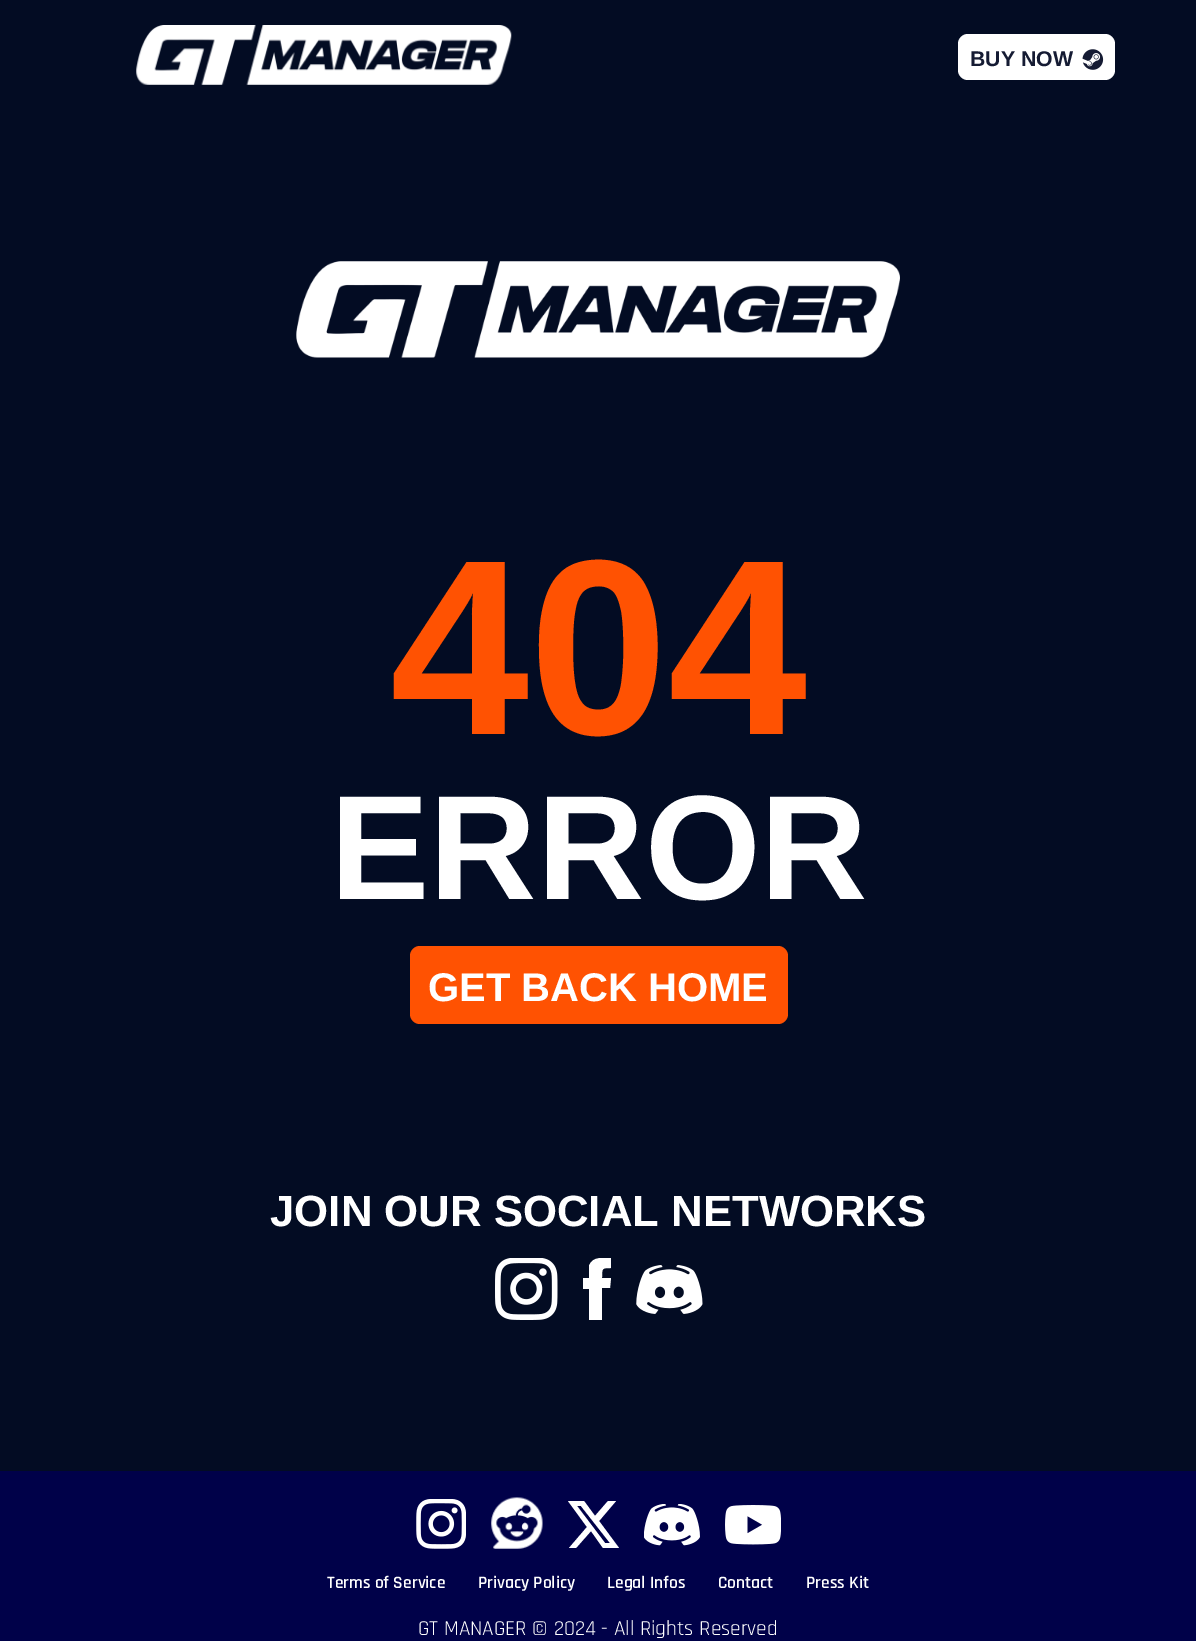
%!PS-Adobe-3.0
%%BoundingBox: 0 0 1196 1641
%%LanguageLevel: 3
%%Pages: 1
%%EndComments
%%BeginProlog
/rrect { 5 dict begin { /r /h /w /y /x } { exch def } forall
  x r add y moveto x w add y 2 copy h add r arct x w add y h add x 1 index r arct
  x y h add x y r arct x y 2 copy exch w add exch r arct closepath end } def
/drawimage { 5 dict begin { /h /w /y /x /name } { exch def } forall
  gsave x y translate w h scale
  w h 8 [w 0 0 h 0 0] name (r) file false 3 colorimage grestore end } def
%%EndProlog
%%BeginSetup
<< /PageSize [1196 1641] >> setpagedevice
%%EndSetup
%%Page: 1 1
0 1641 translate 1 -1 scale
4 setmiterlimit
0.012 0.047 0.137 setrgbcolor
0 0 1196 1641 rectfill
(images/1.raw) 136 25 376 60 drawimage
1 setgray
958 34 157 46 10 rrect fill
(images/2.raw) 1082 49 22 21 drawimage
(images/3.raw) 296 261 604 97 drawimage
1 0.322 0.008 setrgbcolor
410 946 378 78 10 rrect fill
(images/4.raw) 495 1258 63 62 drawimage
gsave
583 1258 28 62 rectclip
1 setgray
newpath 611 1258 moveto 604 1258 592 1256 589 1266 curveto 589 1278 lineto 582 1278 lineto 582 1289 lineto 589 1289 lineto 589 1320 lineto 602 1320 lineto 602 1288 lineto 610 1288 lineto 611 1278 lineto 602 1278 lineto 602 1268 602 1268 611 1268 curveto closepath fill
grestore
(images/5.raw) 636 1265 67 49 drawimage
0 0.004 0.286 setrgbcolor
0 1471 1196 170 rectfill
(images/6.raw) 416 1499 50 50 drawimage
(images/7.raw) 491 1497 52 52 drawimage
1 setgray
newpath 608 1501 moveto 616 1501 lineto 599 1521 lineto 619 1548 lineto 603 1548 lineto 591 1531 lineto 576 1548 lineto 569 1548 lineto 587 1527 lineto 568 1501 lineto 584 1501 lineto 595 1516 lineto closepath 605 1543 moveto 610 1543 lineto 581 1506 lineto 577 1506 lineto closepath fill
(images/8.raw) 644 1504 56 42 drawimage
(images/9.raw) 725 1505 56 40 drawimage
/LiberationSans-Bold [21.25 0 0 -21.25 0 0] selectfont
0.082 0.106 0.2 setrgbcolor
970 66 moveto (BUY NOW) show
/LiberationSans-Bold [250 0 0 -250 0 0] selectfont
1 0.322 0.008 setrgbcolor
390 734 moveto (404) show
/LiberationSans-Bold [149 0 0 -149 0 0] selectfont
1 setgray
330 899 moveto (ERROR) show
/LiberationSans-Bold [40 0 0 -40 0 0] selectfont
428 1001 moveto (GET BACK HOME) show
/LiberationSans-Bold [43.75 0 0 -43.75 0 0] selectfont
270 1226 moveto (JOIN OUR SOCIAL NETWORKS) show
/Rajdhani-SemiBold [17.5 0 0 -17.5 0 0] selectfont
327 1588 moveto (Terms of Service) show
478 1588 moveto (Privacy Policy) show
607 1588 moveto (Legal Infos) show
718 1588 moveto (Contact) show
806 1588 moveto (Press Kit) show
/Rajdhani-Regular [21.25 0 0 -21.25 0 0] selectfont
418 1635 moveto (GT MANAGER © 2024 - All Rights Reserved) show
showpage
%%EOF
